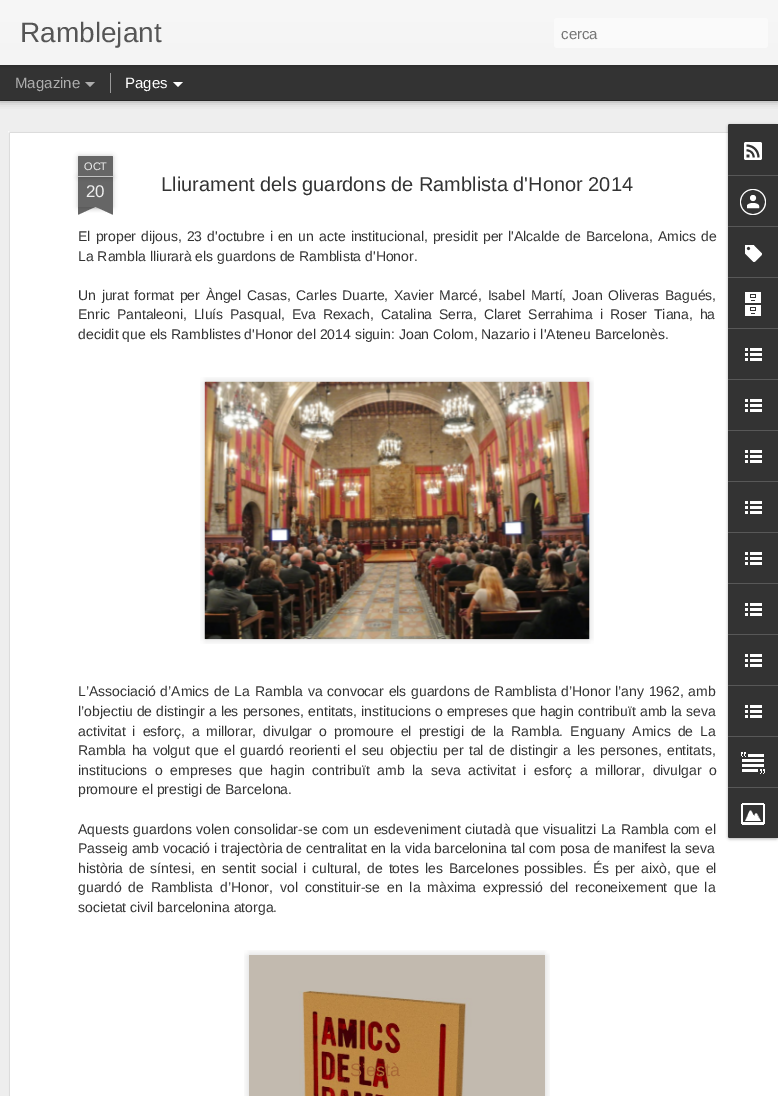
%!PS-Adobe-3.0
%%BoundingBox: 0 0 778 1096
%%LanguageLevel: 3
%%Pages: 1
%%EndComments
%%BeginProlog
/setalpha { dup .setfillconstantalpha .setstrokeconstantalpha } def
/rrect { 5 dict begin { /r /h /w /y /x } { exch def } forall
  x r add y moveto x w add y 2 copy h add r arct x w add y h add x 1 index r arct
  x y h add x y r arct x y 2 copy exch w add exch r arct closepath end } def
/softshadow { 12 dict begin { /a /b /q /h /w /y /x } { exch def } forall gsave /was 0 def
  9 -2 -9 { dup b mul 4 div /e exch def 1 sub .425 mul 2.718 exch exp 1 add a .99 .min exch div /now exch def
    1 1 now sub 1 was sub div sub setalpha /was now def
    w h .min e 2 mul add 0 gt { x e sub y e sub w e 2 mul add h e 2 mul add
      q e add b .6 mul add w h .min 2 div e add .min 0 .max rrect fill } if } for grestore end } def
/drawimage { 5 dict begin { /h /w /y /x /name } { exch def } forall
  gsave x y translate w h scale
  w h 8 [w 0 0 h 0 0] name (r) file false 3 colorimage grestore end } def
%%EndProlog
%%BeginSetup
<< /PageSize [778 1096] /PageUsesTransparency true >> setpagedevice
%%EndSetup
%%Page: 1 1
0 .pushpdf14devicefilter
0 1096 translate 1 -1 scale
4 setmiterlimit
0.2 setgray
0 0 778 1096 rectfill
0.933 setgray
0 101 778 995 rectfill
0 setgray
0 65 778 35 0 4 0.5 softshadow
0.2 setgray
0 65 778 35 rectfill
0.6 setgray
110 73 1 20 rectfill
0 setgray
0 0 778 65 0 2.5 0.3 softshadow
gsave newpath 0 0 moveto 778 0 lineto 778 65 lineto 0 65 lineto closepath clip newpath
<< /ShadingType 2 /ColorSpace /DeviceRGB /Coords [0 0 0 65] /Extend [true true] /Function << /FunctionType 2 /Domain [0 1] /C0 [0.969 0.969 0.969] /C1 [0.957 0.957 0.957] /N 1 >> >> shfill grestore
0.98 setgray
554 18 214 30 3 rrect fill
0.678 setgray
newpath 85 82 moveto 95 82 lineto 90 87 lineto closepath fill
1 setgray
newpath 173 82 moveto 183 82 lineto 178 87 lineto closepath fill
8 131 770 965 rectfill
(images/1.raw) 8 131 720 965 drawimage
0 setgray
78 177 35 30 0 2.5 0.2 softshadow
0.4 setgray
78 177 35 30 rectfill
0 setgray
78 156 35 21 1 2.5 0.2 softshadow
0.4 setgray
newpath 79 156 moveto 112 156 lineto 112.5 156 113 156.5 113 157 curveto 113 177 lineto 78 177 lineto 78 157 lineto 78 156.5 78.5 156 79 156 curveto closepath fill
0.761 setgray
78 176 35 1 rectfill
gsave
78 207 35 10 rectclip
0 setgray
69 197 50 10 0 2.5 0.2 softshadow
grestore
gsave
78 207 35 10 rectclip
0.4 setgray
newpath 69 208 moveto 115 187 lineto 119 196 lineto 73 217 lineto closepath fill
grestore
gsave
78 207 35 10 rectclip
0 setgray
72 197 50 10 0 2.5 0.2 softshadow
grestore
gsave
78 207 35 10 rectclip
0.4 setgray
newpath 76 187 moveto 122 208 lineto 118 217 lineto 72 196 lineto closepath fill
grestore
(images/2.raw) 200 377 394 267 drawimage
(images/3.raw) 204 381 386 259 drawimage
(images/4.raw) 244 950 306 146 drawimage
(images/5.raw) 303 991 163 105 drawimage
0 setgray
728 125 50 714 2 1.5 0.3 softshadow
0.2 setgray
newpath 730 124 moveto 778 124 lineto 778 838 lineto 730 838 lineto 729 838 728 837 728 836 curveto 728 126 lineto 728 125 729 124 730 124 curveto closepath fill
newpath 730 124 moveto 778 124 lineto 778 175 lineto 728 175 lineto 728 126 lineto 728 125 729 124 730 124 curveto closepath fill
(images/6.raw) 744 142 18 18 drawimage
0.345 setgray
728 175 50 1 rectfill
(images/7.raw) 740 189 26 26 drawimage
728 226 50 1 rectfill
(images/8.raw) 745 245 17 17 drawimage
728 277 50 1 rectfill
(images/9.raw) 745 292 16 24 drawimage
728 328 50 1 rectfill
(images/10.raw) 745 348 17 13 drawimage
728 379 50 1 rectfill
(images/10.raw) 745 399 17 13 drawimage
728 430 50 1 rectfill
(images/10.raw) 745 450 17 13 drawimage
728 481 50 1 rectfill
(images/10.raw) 745 501 17 13 drawimage
728 532 50 1 rectfill
(images/10.raw) 745 552 17 13 drawimage
728 583 50 1 rectfill
(images/10.raw) 745 603 17 13 drawimage
728 634 50 1 rectfill
(images/10.raw) 745 654 17 13 drawimage
728 685 50 1 rectfill
(images/10.raw) 745 705 17 13 drawimage
728 736 50 1 rectfill
(images/11.raw) 741 752 24 22 drawimage
0.2 setgray
newpath 728 787 moveto 778 787 lineto 778 838 lineto 730 838 lineto 729 838 728 837 728 836 curveto closepath fill
0.345 setgray
728 787 50 1 rectfill
(images/12.raw) 741 803 24 22 drawimage
/LiberationSans-Regular [28 0 0 -28 0 0] selectfont
0.333 setgray
20 42 moveto (Ramblejant) show
/LiberationSans-Regular [15 0 0 -15 0 0] selectfont
0.459 setgray
561 39 moveto (cerca) show
0.678 setgray
15 88 moveto (Magazine) show
1 setgray
125 88 moveto (Pages) show
/LiberationSans-Regular [11 0 0 -11 0 0] selectfont
0.933 setgray
84 170 moveto (OCT) show
/LiberationSans-Regular [17 0 0 -17 0 0] selectfont
86 197 moveto (20) show
/LiberationSans-Regular [20 0 0 -20 0 0] selectfont
0.2 setgray
161 191 moveto (Lliurament dels guardons de Ramblista d'Honor 2014) show
/LiberationSans-Regular [14 0 0 -14 0 0] selectfont
78 241 moveto 1.2 0 32 (El proper dijous, 23 d'octubre i en un acte institucional, presidit per l'Alcalde de Barcelona, Amics de) widthshow
78 261 moveto (La Rambla lliurarà els guardons de Ramblista d'Honor.) show
78 300 moveto 1.75 0 32 (Un jurat format per Àngel Casas, Carles Duarte, Xavier Marcé, Isabel Martí, Joan Oliveras Bagués,) widthshow
78 319 moveto 3 0 32 (Enric Pantaleoni, Lluís Pasqual, Eva Rexach, Catalina Serra, Claret Serrahima i Roser Tiana, ha) widthshow
78 339 moveto (decidit que els Ramblistes d'Honor del 2014 siguin: Joan Colom, Nazario i l'Ateneu Barcelonès.) show
78 696 moveto 0.8 0 32 (L’Associació d’Amics de La Rambla va convocar els guardons de Ramblista d’Honor l’any 1962, amb) widthshow
78 716 moveto 0.25 0 32 (l’objectiu de distingir a les persones, entitats, institucions o empreses que hagin contribuït amb la seva) widthshow
78 736 moveto 3.1 0 32 (activitat i esforç, a millorar, divulgar o promoure el prestigi de la Rambla. Enguany Amics de La) widthshow
78 755 moveto 1.5 0 32 (Rambla ha volgut que el guardó reorienti el seu objectiu per tal de distingir a les persones, entitats,) widthshow
78 775 moveto 3.75 0 32 (institucions o empreses que hagin contribuït amb la seva activitat i esforç a millorar, divulgar o) widthshow
78 794 moveto (promoure el prestigi de Barcelona.) show
78 834 moveto 0.75 0 32 (Aquests guardons volen consolidar-se com un esdeveniment ciutadà que visualitzi La Rambla com el) widthshow
78 853 moveto (Passeig amb vocació i trajectòria de centralitat en la vida barcelonina tal com posa de manifest la seva) show
78 873 moveto 2 0 32 (història de síntesi, en sentit social i cultural, de totes les Barcelones possibles. És per això, que el) widthshow
78 892 moveto 3 0 32 (guardó de Ramblista d’Honor, vol constituir-se en la màxima expressió del reconeixement que la) widthshow
78 912 moveto (societat civil barcelonina atorga.) show
/LiberationSans-Regular [18 0 0 -18 0 0] selectfont
0.659 0.404 0.208 setrgbcolor
350 1076 moveto (S’està) show
.poppdf14devicefilter showpage
%%EOF
